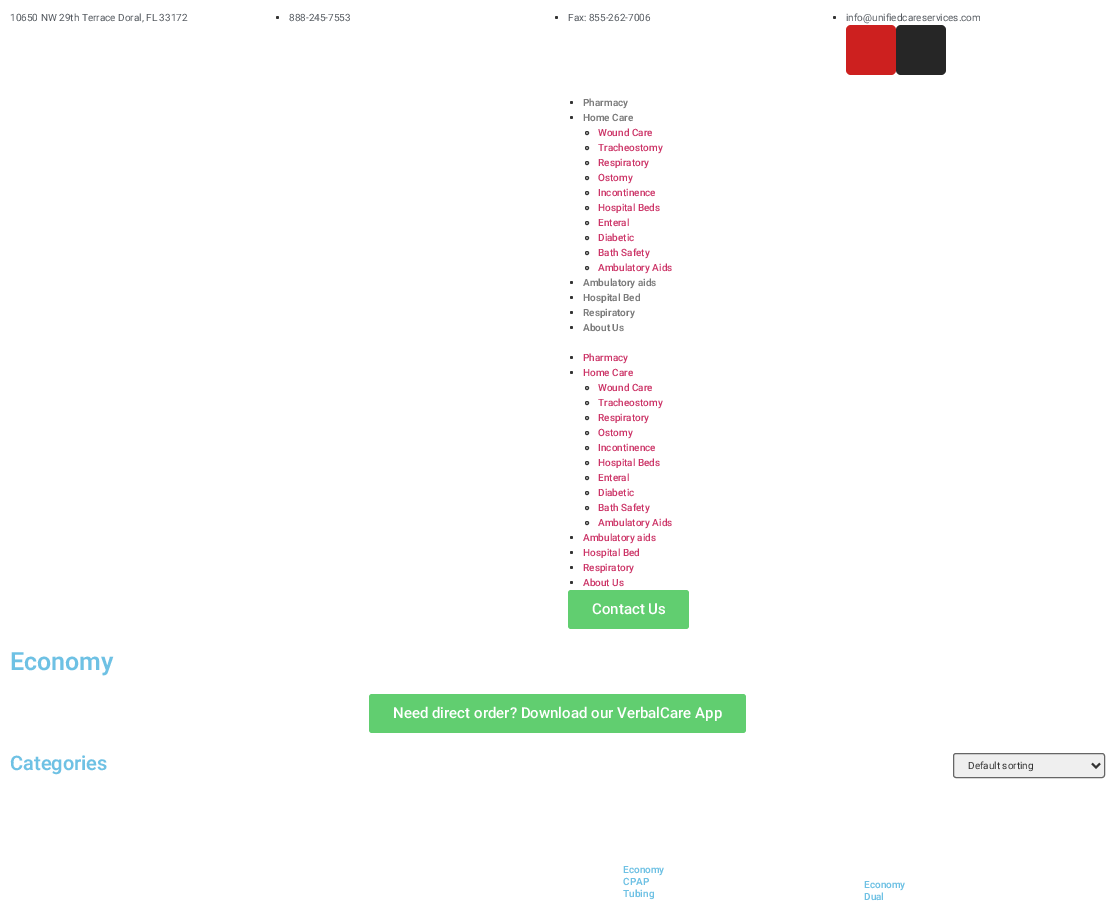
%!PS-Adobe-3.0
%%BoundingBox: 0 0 1115 905
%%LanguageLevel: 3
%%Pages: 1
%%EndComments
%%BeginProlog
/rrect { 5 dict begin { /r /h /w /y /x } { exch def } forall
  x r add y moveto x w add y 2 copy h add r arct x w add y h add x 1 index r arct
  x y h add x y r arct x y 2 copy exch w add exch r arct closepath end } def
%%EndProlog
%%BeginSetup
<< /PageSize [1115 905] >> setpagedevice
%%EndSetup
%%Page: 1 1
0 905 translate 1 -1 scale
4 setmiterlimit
1 setgray
0 0 1115 905 rectfill
0.2 setgray
newpath 277.5 17.5 1.5 0 360 arc closepath fill
newpath 556.5 17.5 1.5 0 360 arc closepath fill
newpath 834.5 17.5 1.5 0 360 arc closepath fill
0.804 0.125 0.122 setrgbcolor
846 25 50 50 5 rrect fill
0.149 setgray
896 25 50 50 5 rrect fill
0.2 setgray
newpath 571.5 102.5 1.5 0 360 arc closepath fill
newpath 571.5 117.5 1.5 0 360 arc closepath fill
newpath 587 133 1.5 0 360 arc closepath stroke
newpath 587 148 1.5 0 360 arc closepath stroke
newpath 587 163 1.5 0 360 arc closepath stroke
newpath 587 178 1.5 0 360 arc closepath stroke
newpath 587 193 1.5 0 360 arc closepath stroke
newpath 587 208 1.5 0 360 arc closepath stroke
newpath 587 223 1.5 0 360 arc closepath stroke
newpath 587 238 1.5 0 360 arc closepath stroke
newpath 587 253 1.5 0 360 arc closepath stroke
newpath 587 268 1.5 0 360 arc closepath stroke
newpath 571.5 282.5 1.5 0 360 arc closepath fill
newpath 571.5 297.5 1.5 0 360 arc closepath fill
newpath 571.5 312.5 1.5 0 360 arc closepath fill
newpath 571.5 327.5 1.5 0 360 arc closepath fill
newpath 571.5 357.5 1.5 0 360 arc closepath fill
newpath 571.5 372.5 1.5 0 360 arc closepath fill
newpath 587 388 1.5 0 360 arc closepath stroke
newpath 587 403 1.5 0 360 arc closepath stroke
newpath 587 418 1.5 0 360 arc closepath stroke
newpath 587 433 1.5 0 360 arc closepath stroke
newpath 587 448 1.5 0 360 arc closepath stroke
newpath 587 463 1.5 0 360 arc closepath stroke
newpath 587 478 1.5 0 360 arc closepath stroke
newpath 587 493 1.5 0 360 arc closepath stroke
newpath 587 508 1.5 0 360 arc closepath stroke
newpath 587 523 1.5 0 360 arc closepath stroke
newpath 571.5 537.5 1.5 0 360 arc closepath fill
newpath 571.5 552.5 1.5 0 360 arc closepath fill
newpath 571.5 567.5 1.5 0 360 arc closepath fill
newpath 571.5 582.5 1.5 0 360 arc closepath fill
0.38 0.808 0.439 setrgbcolor
568 590 121 39 3 rrect fill
369 694 377 39 3 rrect fill
0.937 setgray
953.5 753.5 151 24 2.5 rrect gsave fill grestore
0.4 setgray
stroke
0.2 setgray
2 setlinewidth
newpath 1092 763.5 moveto 1096 767.5 lineto 1100 763.5 lineto stroke
/Roboto-Regular [10 0 0 -10 0 0] selectfont
0.329 0.349 0.373 setrgbcolor
10 21 moveto (10650 NW 29th Terrace Doral, FL 33172) show
289 21 moveto (888-245-7553) show
568 21 moveto (Fax: 855-262-7006) show
846 21 moveto (info@unifiedcareservices.com) show
/Roboto-SemiBold [10 0 0 -10 0 0] selectfont
0.478 setgray
583 106 moveto (Pharmacy) show
583 121 moveto (Home Care) show
/Roboto-Medium [10 0 0 -10 0 0] selectfont
0.8 0.2 0.4 setrgbcolor
598 136 moveto (Wound Care) show
598 151 moveto (Tracheostomy) show
598 166 moveto (Respiratory) show
598 181 moveto (Ostomy) show
598 196 moveto (Incontinence) show
598 211 moveto (Hospital Beds) show
598 226 moveto (Enteral) show
598 241 moveto (Diabetic) show
598 256 moveto (Bath Safety) show
598 271 moveto (Ambulatory Aids) show
/Roboto-SemiBold [10 0 0 -10 0 0] selectfont
0.478 setgray
583 286 moveto (Ambulatory aids) show
583 301 moveto (Hospital Bed) show
583 316 moveto (Respiratory) show
583 331 moveto (About Us) show
/Roboto-Medium [10 0 0 -10 0 0] selectfont
0.8 0.2 0.4 setrgbcolor
583 361 moveto (Pharmacy) show
583 376 moveto (Home Care) show
598 391 moveto (Wound Care) show
598 406 moveto (Tracheostomy) show
598 421 moveto (Respiratory) show
598 436 moveto (Ostomy) show
598 451 moveto (Incontinence) show
598 466 moveto (Hospital Beds) show
598 481 moveto (Enteral) show
598 496 moveto (Diabetic) show
598 511 moveto (Bath Safety) show
598 526 moveto (Ambulatory Aids) show
583 541 moveto (Ambulatory aids) show
583 556 moveto (Hospital Bed) show
583 571 moveto (Respiratory) show
583 586 moveto (About Us) show
/Roboto-Medium [15 0 0 -15 0 0] selectfont
1 setgray
592 614 moveto (Contact Us) show
/Roboto-SemiBold [25 0 0 -25 0 0] selectfont
0.431 0.757 0.894 setrgbcolor
10 670 moveto (Economy) show
/Roboto-Medium [15 0 0 -15 0 0] selectfont
1 setgray
393 718 moveto (Need direct order? Download our VerbalCare App) show
/Roboto-SemiBold [20 0 0 -20 0 0] selectfont
0.431 0.757 0.894 setrgbcolor
10 770 moveto (Categories) show
/Roboto-Regular [10 0 0 -10 0 0] selectfont
0.2 setgray
968 769 moveto (Default sorting) show
/Roboto-SemiBold [10 0 0 -10 0 0] selectfont
0.431 0.757 0.894 setrgbcolor
623 873 moveto (Economy) show
623 885 moveto (CPAP) show
623 897 moveto (Tubing) show
864 888 moveto (Economy) show
864 900 moveto (Dual) show
showpage
%%EOF
